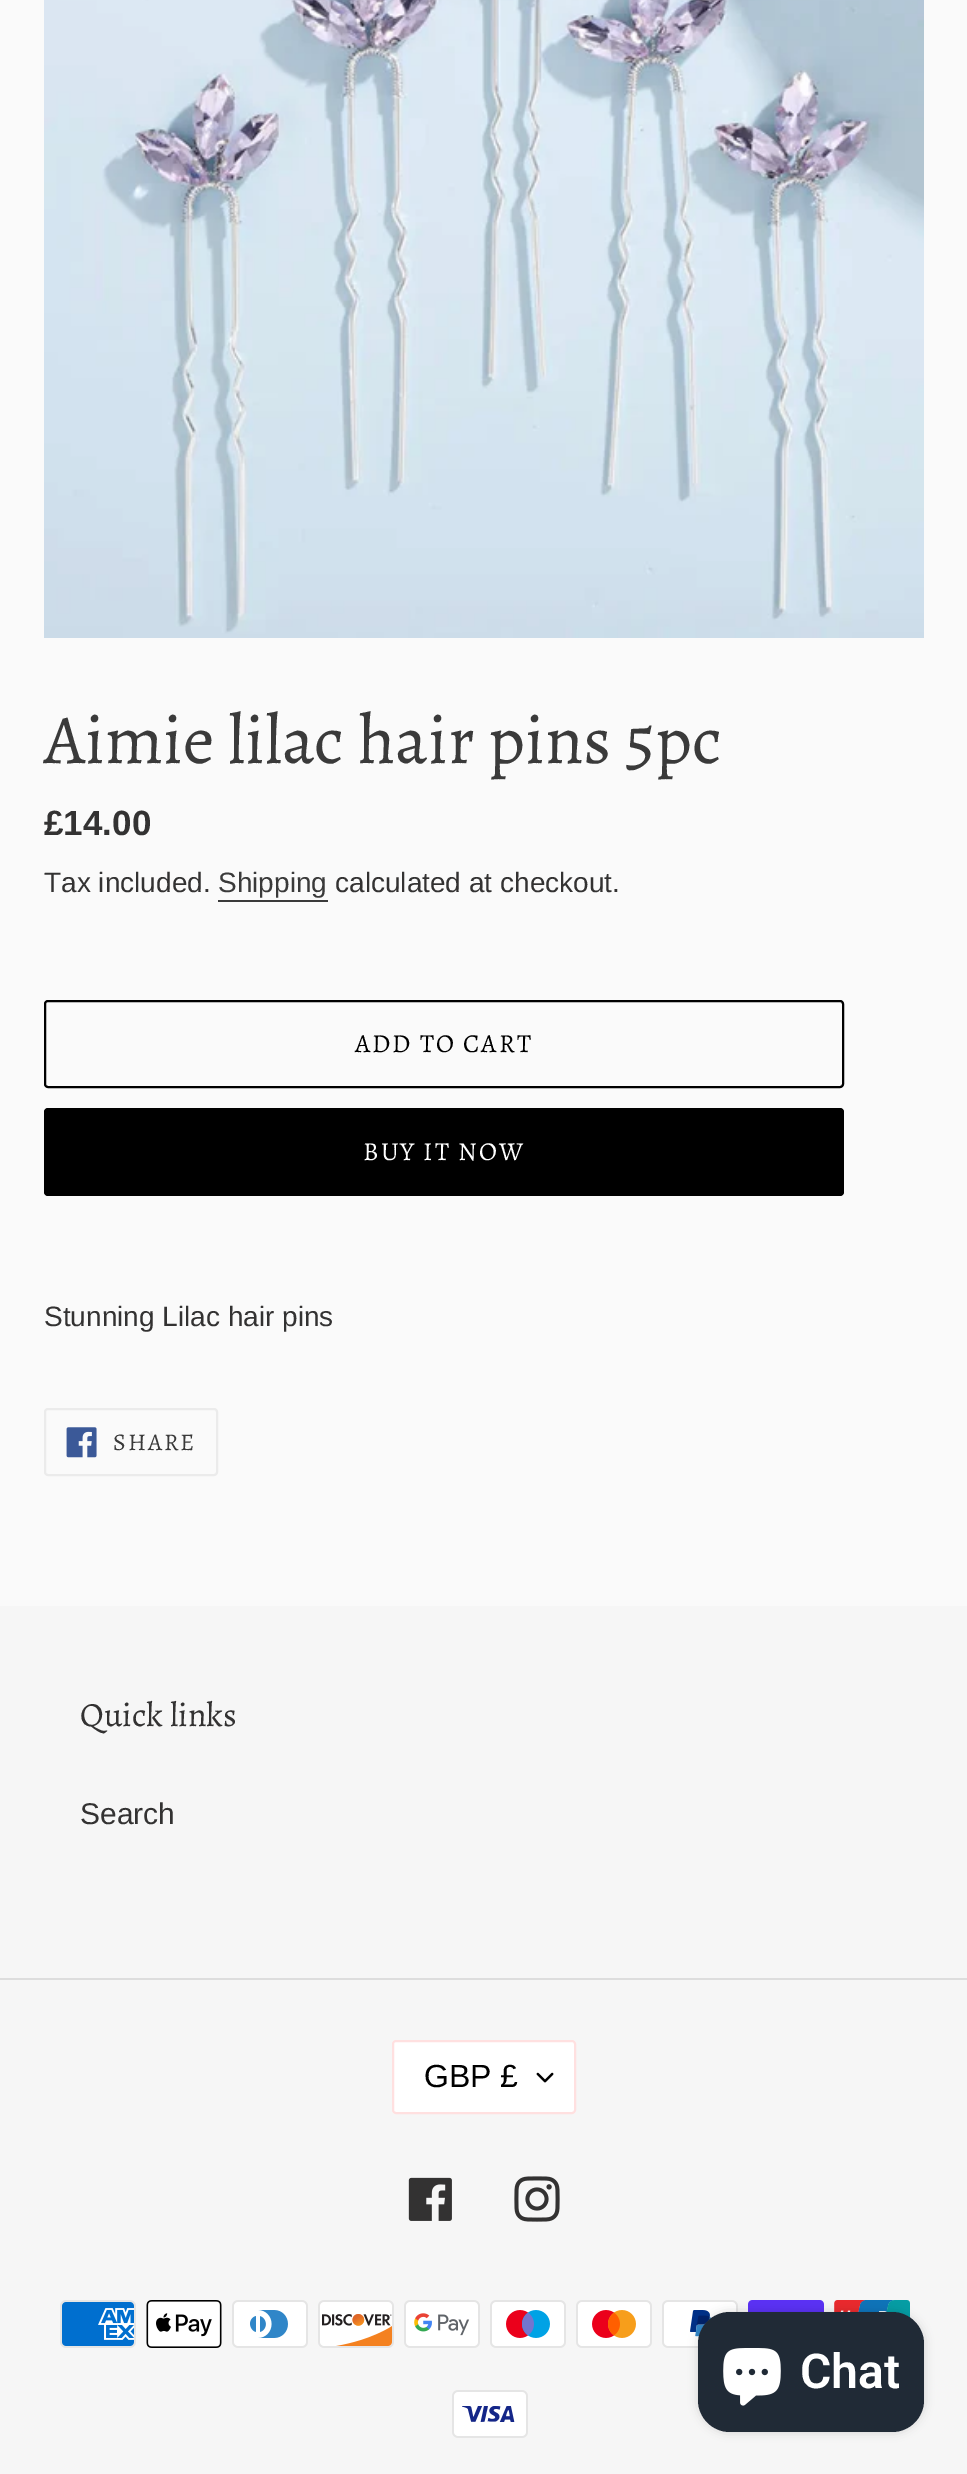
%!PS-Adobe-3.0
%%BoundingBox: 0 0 967 2474
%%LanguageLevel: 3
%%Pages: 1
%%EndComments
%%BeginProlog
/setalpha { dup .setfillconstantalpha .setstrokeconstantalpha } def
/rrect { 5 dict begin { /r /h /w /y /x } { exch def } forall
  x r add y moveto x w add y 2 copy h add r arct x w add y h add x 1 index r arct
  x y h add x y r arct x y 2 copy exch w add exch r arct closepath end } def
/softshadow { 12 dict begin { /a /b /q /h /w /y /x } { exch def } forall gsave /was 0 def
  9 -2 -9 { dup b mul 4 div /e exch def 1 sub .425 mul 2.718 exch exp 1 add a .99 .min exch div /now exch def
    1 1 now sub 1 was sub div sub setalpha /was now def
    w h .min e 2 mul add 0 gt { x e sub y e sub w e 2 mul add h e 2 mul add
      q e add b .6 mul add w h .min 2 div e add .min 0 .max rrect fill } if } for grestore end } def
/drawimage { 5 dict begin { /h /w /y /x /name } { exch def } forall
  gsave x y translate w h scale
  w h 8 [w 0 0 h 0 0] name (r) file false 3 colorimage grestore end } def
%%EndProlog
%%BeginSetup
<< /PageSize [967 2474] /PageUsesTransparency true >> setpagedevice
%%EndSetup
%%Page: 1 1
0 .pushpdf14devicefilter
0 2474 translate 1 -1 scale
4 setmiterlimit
0.98 setgray
0 0 967 2474 rectfill
(images/1.raw) 44 0 880 638 drawimage
0.227 setgray
218 900 110 2 rectfill
0 setgray
2 setlinewidth
45 1001 798 86 3 rrect stroke
44 1108 800 88 4 rrect fill
0.922 setgray
45 1409 172 66 3 rrect stroke
(images/2.raw) 66 1427 31 31 drawimage
0.965 setgray
0 1606 967 868 rectfill
0.867 setgray
0 1978 967 2 rectfill
1 setgray
392 2040 184 74 4 rrect fill
(images/3.raw) 536 2072 18 11 drawimage
1 0.878 0.878 setrgbcolor
393 2041 182 72 3 rrect stroke
(images/4.raw) 408 2177 44 44 drawimage
(images/5.raw) 514 2176 46 46 drawimage
(images/6.raw) 60 2300 76 48 drawimage
(images/7.raw) 146 2300 76 48 drawimage
(images/8.raw) 232 2300 76 48 drawimage
(images/9.raw) 318 2300 76 48 drawimage
(images/10.raw) 404 2300 76 48 drawimage
(images/11.raw) 490 2300 76 48 drawimage
(images/12.raw) 576 2300 76 48 drawimage
(images/13.raw) 662 2300 76 48 drawimage
(images/14.raw) 748 2300 76 12 drawimage
(images/15.raw) 834 2300 76 18 drawimage
(images/16.raw) 452 2390 76 48 drawimage
0 setgray
698 2312 226 120 32 5 0.15 softshadow
0.125 0.165 0.212 setrgbcolor
698 2312 226 120 32 rrect fill
(images/17.raw) 723 2348 58 58 drawimage
/Alegreya-Regular [70 0 0 -70 0 0] selectfont
0.227 setgray
44 763 moveto (Aimie lilac hair pins 5pc) show
/LiberationSans-Bold [35 0 0 -35 0 0] selectfont
0.2 0.196 0.196 setrgbcolor
44 835 moveto (£14.00) show
/LiberationSans-Regular [28 0 0 -28 0 0] selectfont
44 892 moveto (Tax included.) show
0.227 setgray
218 892 moveto (Shipping) show
0.2 0.196 0.196 setrgbcolor
335 892 moveto (calculated at checkout.) show
/Alegreya-Regular [26 0 0 -26 0 0] selectfont
0 setgray
355 1052 moveto 2 0 (ADD TO CART) ashow
1 setgray
363 1160 moveto 2 0 (BUY IT NOW) ashow
/LiberationSans-Regular [28 0 0 -28 0 0] selectfont
0.2 0.196 0.196 setrgbcolor
44 1326 moveto (Stunning Lilac hair pins) show
/Alegreya-Regular [24 0 0 -24 0 0] selectfont
0.227 setgray
113 1450 moveto 2 0 (SHARE) ashow
/Alegreya-Regular [34 0 0 -34 0 0] selectfont
0.2 0.196 0.196 setrgbcolor
80 1726 moveto (Quick links) show
/LiberationSans-Regular [30 0 0 -30 0 0] selectfont
80 1824 moveto (Search) show
/LiberationSans-Regular [32 0 0 -32 0 0] selectfont
0 setgray
424 2087 moveto (GBP £) show
/Roboto-SemiBold [48 0 0 -48 0 0] selectfont
1 setgray
800 2388 moveto (Chat) show
.poppdf14devicefilter showpage
%%EOF
